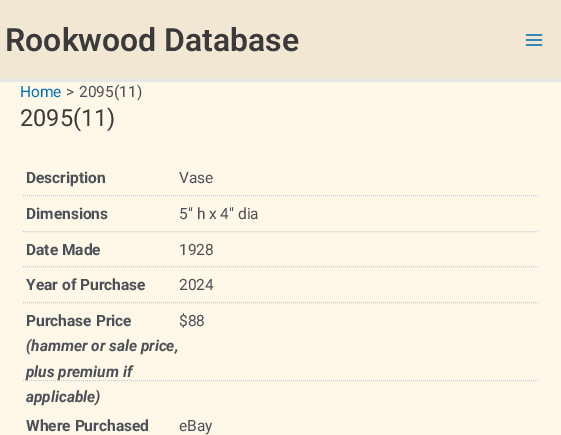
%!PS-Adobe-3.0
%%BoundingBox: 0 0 561 435
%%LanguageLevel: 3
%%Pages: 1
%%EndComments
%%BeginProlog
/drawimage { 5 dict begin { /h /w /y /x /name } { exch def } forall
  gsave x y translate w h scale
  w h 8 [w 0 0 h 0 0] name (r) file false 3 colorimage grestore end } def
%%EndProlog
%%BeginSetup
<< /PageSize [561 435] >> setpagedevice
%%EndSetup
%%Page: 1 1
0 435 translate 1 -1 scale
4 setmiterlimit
1 0.969 0.906 setrgbcolor
0 0 561 435 rectfill
0.945 0.906 0.824 setrgbcolor
0 0 561 79 rectfill
0.898 setgray
0 79 561 3 rectfill
(images/1.raw) 525 34 18 12 drawimage
0.8 setgray
[1 1] 0 setdash
newpath 23 195.5 moveto 538 195.5 lineto stroke
newpath 23 231.5 moveto 538 231.5 lineto stroke
newpath 23 266.5 moveto 538 266.5 lineto stroke
newpath 23 302.5 moveto 538 302.5 lineto stroke
newpath 23 380.5 moveto 538 380.5 lineto stroke
/Roboto-SemiBold [32 0 0 -32 0 0] selectfont
0.227 setgray
5 51 moveto (Rookwood Database) show
/Roboto-Regular [15.5 0 0 -15.5 0 0] selectfont
0.004 0.439 0.725 setrgbcolor
20 97 moveto (Home) show
0.294 0.31 0.345 setrgbcolor
66 97 moveto (>) show
79 97 moveto (2095\(11\)) show
/Roboto-Regular [23.5 0 0 -23.5 0 0] selectfont
0.227 setgray
20 126 moveto (2095\(11\)) show
/Roboto-Bold [15.5 0 0 -15.5 0 0] selectfont
0.294 0.31 0.345 setrgbcolor
26 183 moveto (Description) show
/Roboto-Regular [15.5 0 0 -15.5 0 0] selectfont
179 183 moveto (Vase) show
/Roboto-Bold [15.5 0 0 -15.5 0 0] selectfont
26 219 moveto (Dimensions) show
/Roboto-Regular [15.5 0 0 -15.5 0 0] selectfont
179 219 moveto (5" h x 4" dia) show
/Roboto-Bold [15.5 0 0 -15.5 0 0] selectfont
26 255 moveto (Date Made) show
/Roboto-Regular [15.5 0 0 -15.5 0 0] selectfont
179 255 moveto (1928) show
/Roboto-Bold [15.5 0 0 -15.5 0 0] selectfont
26 290 moveto (Year of Purchase) show
/Roboto-Regular [15.5 0 0 -15.5 0 0] selectfont
179 290 moveto (2024) show
/Roboto-Bold [15.5 0 0 -15.5 0 0] selectfont
26 326 moveto (Purchase Price) show
/Roboto-BoldItalic [15.5 0 0 -15.5 0 0] selectfont
26 351 moveto (\(hammer or sale price,) show
26 377 moveto (plus premium if) show
26 402 moveto (applicable\)) show
/Roboto-Regular [15.5 0 0 -15.5 0 0] selectfont
179 326 moveto ($88) show
/Roboto-Bold [15.5 0 0 -15.5 0 0] selectfont
26 431 moveto (Where Purchased) show
/Roboto-Regular [15.5 0 0 -15.5 0 0] selectfont
179 431 moveto (eBay) show
showpage
%%EOF
